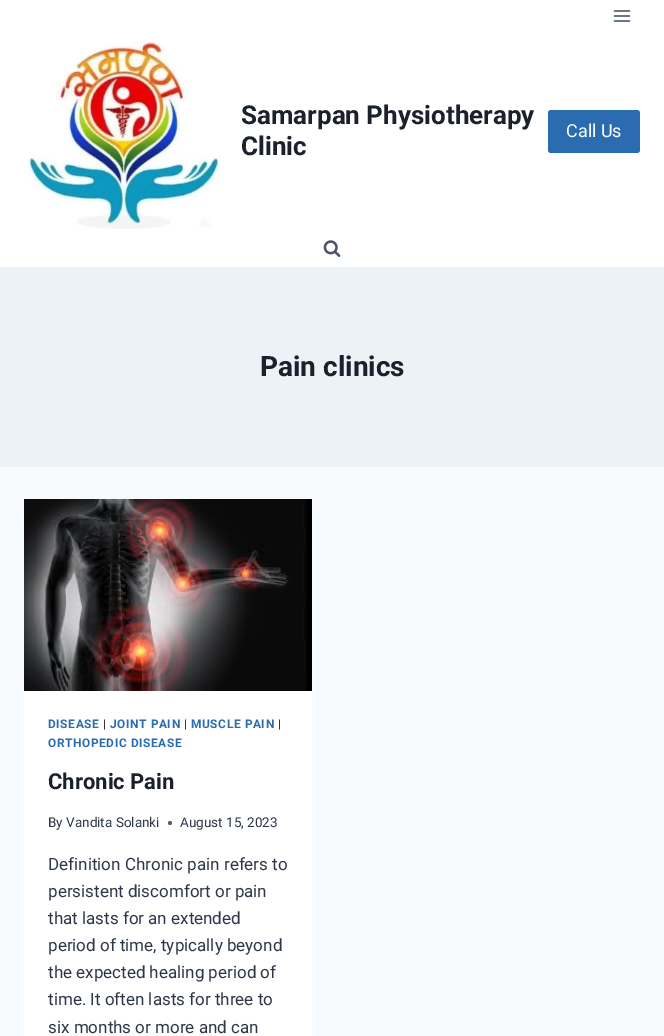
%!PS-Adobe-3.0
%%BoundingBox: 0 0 664 1036
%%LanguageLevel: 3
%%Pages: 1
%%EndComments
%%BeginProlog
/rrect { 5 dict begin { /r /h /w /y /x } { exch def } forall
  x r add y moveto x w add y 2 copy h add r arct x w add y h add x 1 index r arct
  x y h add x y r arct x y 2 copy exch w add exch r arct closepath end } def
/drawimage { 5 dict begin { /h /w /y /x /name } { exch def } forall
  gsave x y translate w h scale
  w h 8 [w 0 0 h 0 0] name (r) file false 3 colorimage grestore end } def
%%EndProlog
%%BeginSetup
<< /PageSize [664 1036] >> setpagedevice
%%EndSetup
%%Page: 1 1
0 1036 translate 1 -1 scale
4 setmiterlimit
0.969 0.98 0.988 setrgbcolor
0 0 664 1036 rectfill
1 setgray
0 0 664 267 rectfill
(images/1.raw) 613 10 18 12 drawimage
(images/2.raw) 28 41 193 188 drawimage
0.169 0.424 0.69 setrgbcolor
548 110 92 43 3 rrect fill
(images/3.raw) 323 240 18 17 drawimage
0.929 0.949 0.969 setrgbcolor
0 267 664 200 rectfill
1 setgray
24 691 288 345 rectfill
(images/4.raw) 24 499 288 192 drawimage
0.341 0.373 0.427 setrgbcolor
newpath 170 823 2 0 360 arc closepath fill
/Roboto-Bold [26 0 0 -26 0 0] selectfont
0.102 0.125 0.173 setrgbcolor
241 124 moveto (Samarpan Physiotherapy) show
241 155 moveto (Clinic) show
/Roboto-Regular [18 0 0 -18 0 0] selectfont
1 setgray
566 137 moveto (Call Us) show
/Roboto-Bold [28 0 0 -28 0 0] selectfont
0.102 0.125 0.173 setrgbcolor
260 376 moveto (Pain clinics) show
/Roboto-Bold [11.9 0 0 -11.9 0 0] selectfont
0.169 0.424 0.69 setrgbcolor
48 728 moveto 0.6 0 (DISEASE) ashow
/Roboto-Regular [11.9 0 0 -11.9 0 0] selectfont
0.176 0.216 0.282 setrgbcolor
103 728 moveto 0.6 0 (|) ashow
/Roboto-Bold [11.9 0 0 -11.9 0 0] selectfont
0.169 0.424 0.69 setrgbcolor
110 728 moveto 0.6 0 (JOINT PAIN) ashow
/Roboto-Regular [11.9 0 0 -11.9 0 0] selectfont
0.176 0.216 0.282 setrgbcolor
184 728 moveto 0.6 0 (|) ashow
/Roboto-Bold [11.9 0 0 -11.9 0 0] selectfont
0.169 0.424 0.69 setrgbcolor
191 728 moveto 0.6 0 (MUSCLE PAIN) ashow
/Roboto-Regular [11.9 0 0 -11.9 0 0] selectfont
0.176 0.216 0.282 setrgbcolor
278 728 moveto 0.6 0 (|) ashow
/Roboto-Bold [11.9 0 0 -11.9 0 0] selectfont
0.169 0.424 0.69 setrgbcolor
48 747 moveto 0.6 0 (ORTHOPEDIC DISEASE) ashow
/Roboto-Bold [22 0 0 -22 0 0] selectfont
0.102 0.125 0.173 setrgbcolor
48 789 moveto (Chronic Pain) show
/Roboto-Regular [13.5 0 0 -13.5 0 0] selectfont
0.176 0.216 0.282 setrgbcolor
48 827 moveto (By Vandita Solanki) show
180 827 moveto (August 15, 2023) show
/Roboto-Regular [17 0 0 -17 0 0] selectfont
48 870 moveto (Definition Chronic pain refers to) show
48 897 moveto (persistent discomfort or pain) show
48 924 moveto (that lasts for an extended) show
48 951 moveto (period of time, typically beyond) show
48 978 moveto (the expected healing period of) show
48 1005 moveto (time. It often lasts for three to) show
48 1033 moveto (six months or more and can) show
showpage
%%EOF
